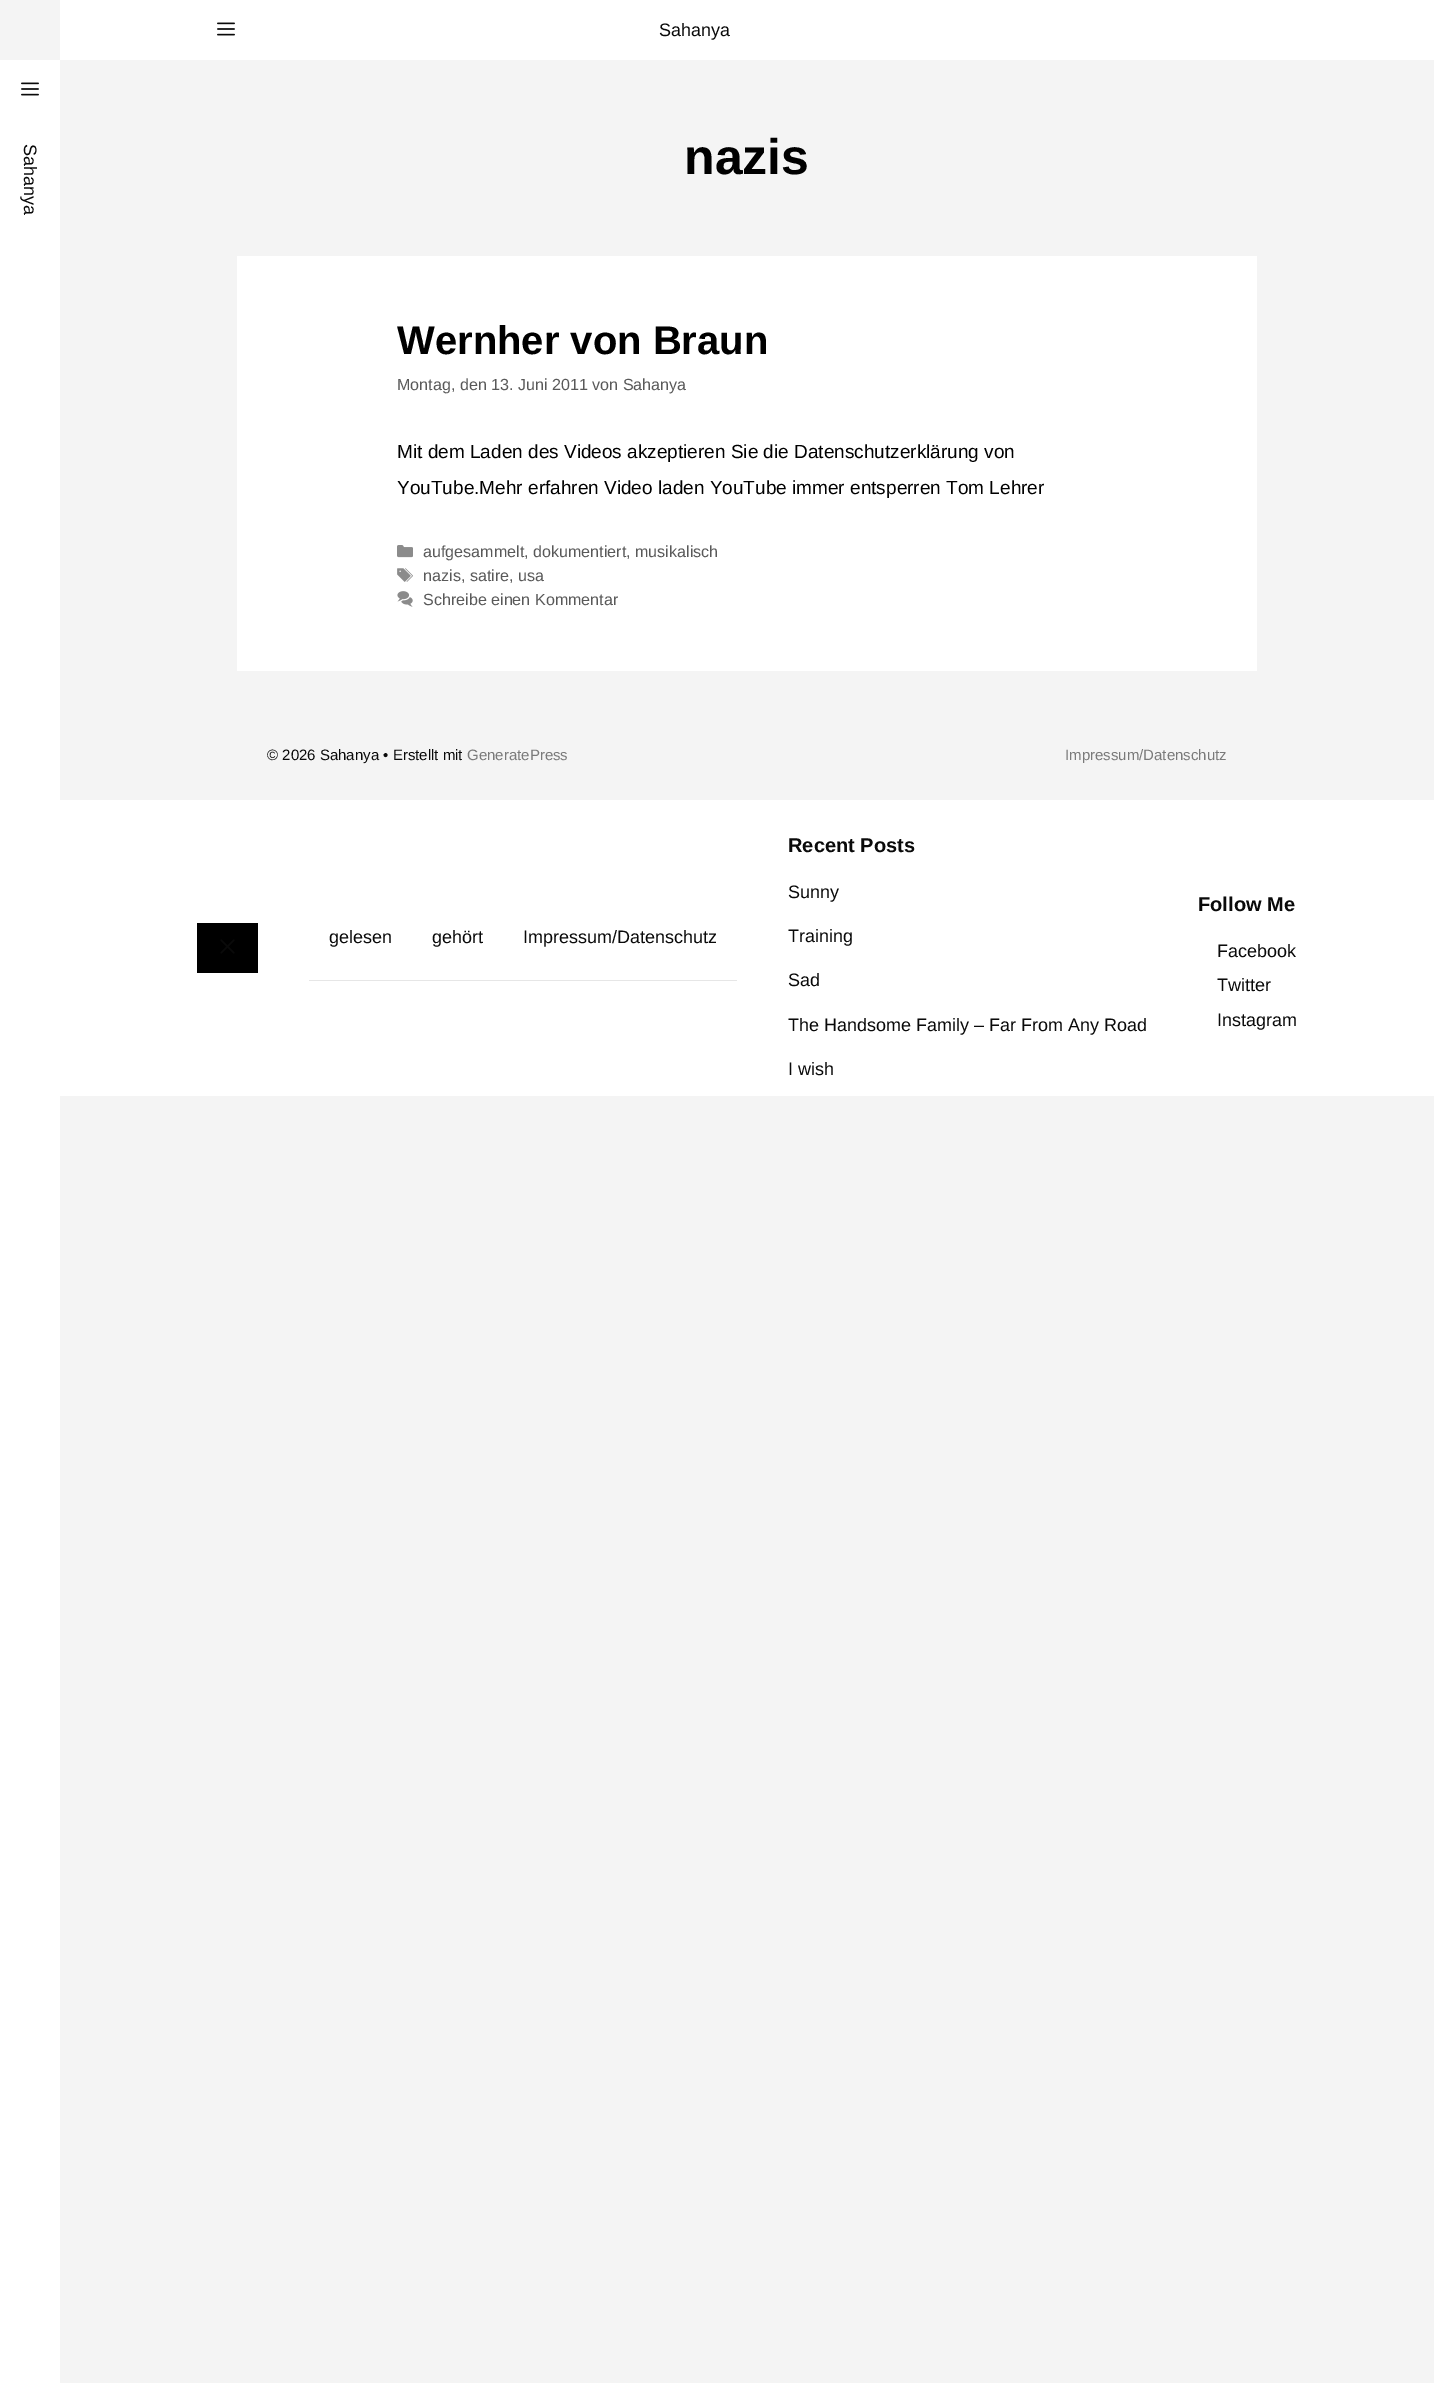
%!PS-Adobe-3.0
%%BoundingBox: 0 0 1434 2383
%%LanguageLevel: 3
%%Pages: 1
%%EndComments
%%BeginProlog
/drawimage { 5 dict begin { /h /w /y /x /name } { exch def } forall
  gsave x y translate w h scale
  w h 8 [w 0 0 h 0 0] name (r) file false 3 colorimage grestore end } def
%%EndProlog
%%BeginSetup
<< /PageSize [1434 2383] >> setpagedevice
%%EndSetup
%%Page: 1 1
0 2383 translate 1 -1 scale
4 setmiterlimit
0.957 setgray
0 0 1434 2383 rectfill
1 setgray
60 0 1374 60 rectfill
(images/1.raw) 217 22 18 14 drawimage
0 60 60 2323 rectfill
(images/1.raw) 21 82 18 14 drawimage
237 256 1020 415 rectfill
(images/2.raw) 397 545 16 13 drawimage
(images/3.raw) 397 568 16 14 drawimage
(images/4.raw) 397 591 16 16 drawimage
60 800 1374 296 rectfill
0 setgray
197 923 61 50 rectfill
(images/5.raw) 220 939 15 15 drawimage
0.902 setgray
309 980 428 1 rectfill
/LiberationSans-Regular [18 0 0 -18 0 0] selectfont
0.039 setgray
659 36 moveto (Sahanya) show
gsave 24 144 translate 90 rotate 0 0 moveto (Sahanya) show grestore
/LiberationSans-Bold [50 0 0 -50 0 0] selectfont
0 setgray
684 174 moveto (nazis) show
/LiberationSans-Bold [40 0 0 -40 0 0] selectfont
397 354 moveto (Wernher von Braun) show
/LiberationSans-Regular [16.1 0 0 -16.1 0 0] selectfont
0.349 setgray
397 390 moveto (Montag, den 13. Juni 2011 von Sahanya) show
/LiberationSans-Regular [19 0 0 -19 0 0] selectfont
0 setgray
397 458 moveto (Mit dem Laden des Videos akzeptieren Sie die Datenschutzerklärung von) show
397 494 moveto (YouTube.Mehr erfahren Video laden YouTube immer entsperren Tom Lehrer) show
/LiberationSans-Regular [16.1 0 0 -16.1 0 0] selectfont
0.349 setgray
423 557 moveto (aufgesammelt, dokumentiert, musikalisch) show
423 581 moveto (nazis, satire, usa) show
423 605 moveto (Schreibe einen Kommentar) show
/LiberationSans-Regular [15 0 0 -15 0 0] selectfont
0.039 setgray
267 760 moveto (© 2026 Sahanya • Erstellt mit) show
0.478 setgray
467 760 moveto (GeneratePress) show
1065 760 moveto (Impressum/Datenschutz) show
/LiberationSans-Regular [18 0 0 -18 0 0] selectfont
0.039 setgray
329 943 moveto (gelesen) show
432 943 moveto (gehört) show
523 943 moveto (Impressum/Datenschutz) show
/LiberationSans-Bold [20 0 0 -20 0 0] selectfont
788 852 moveto (Recent Posts) show
/LiberationSans-Regular [18 0 0 -18 0 0] selectfont
788 898 moveto (Sunny) show
788 942 moveto (Training) show
788 986 moveto (Sad) show
788 1031 moveto (The Handsome Family – Far From Any Road) show
788 1075 moveto (I wish) show
/LiberationSans-Bold [20 0 0 -20 0 0] selectfont
1198 911 moveto (Follow Me) show
/LiberationSans-Regular [18 0 0 -18 0 0] selectfont
1217 957 moveto (Facebook) show
1217 991 moveto (Twitter) show
1217 1026 moveto (Instagram) show
showpage
%%EOF
